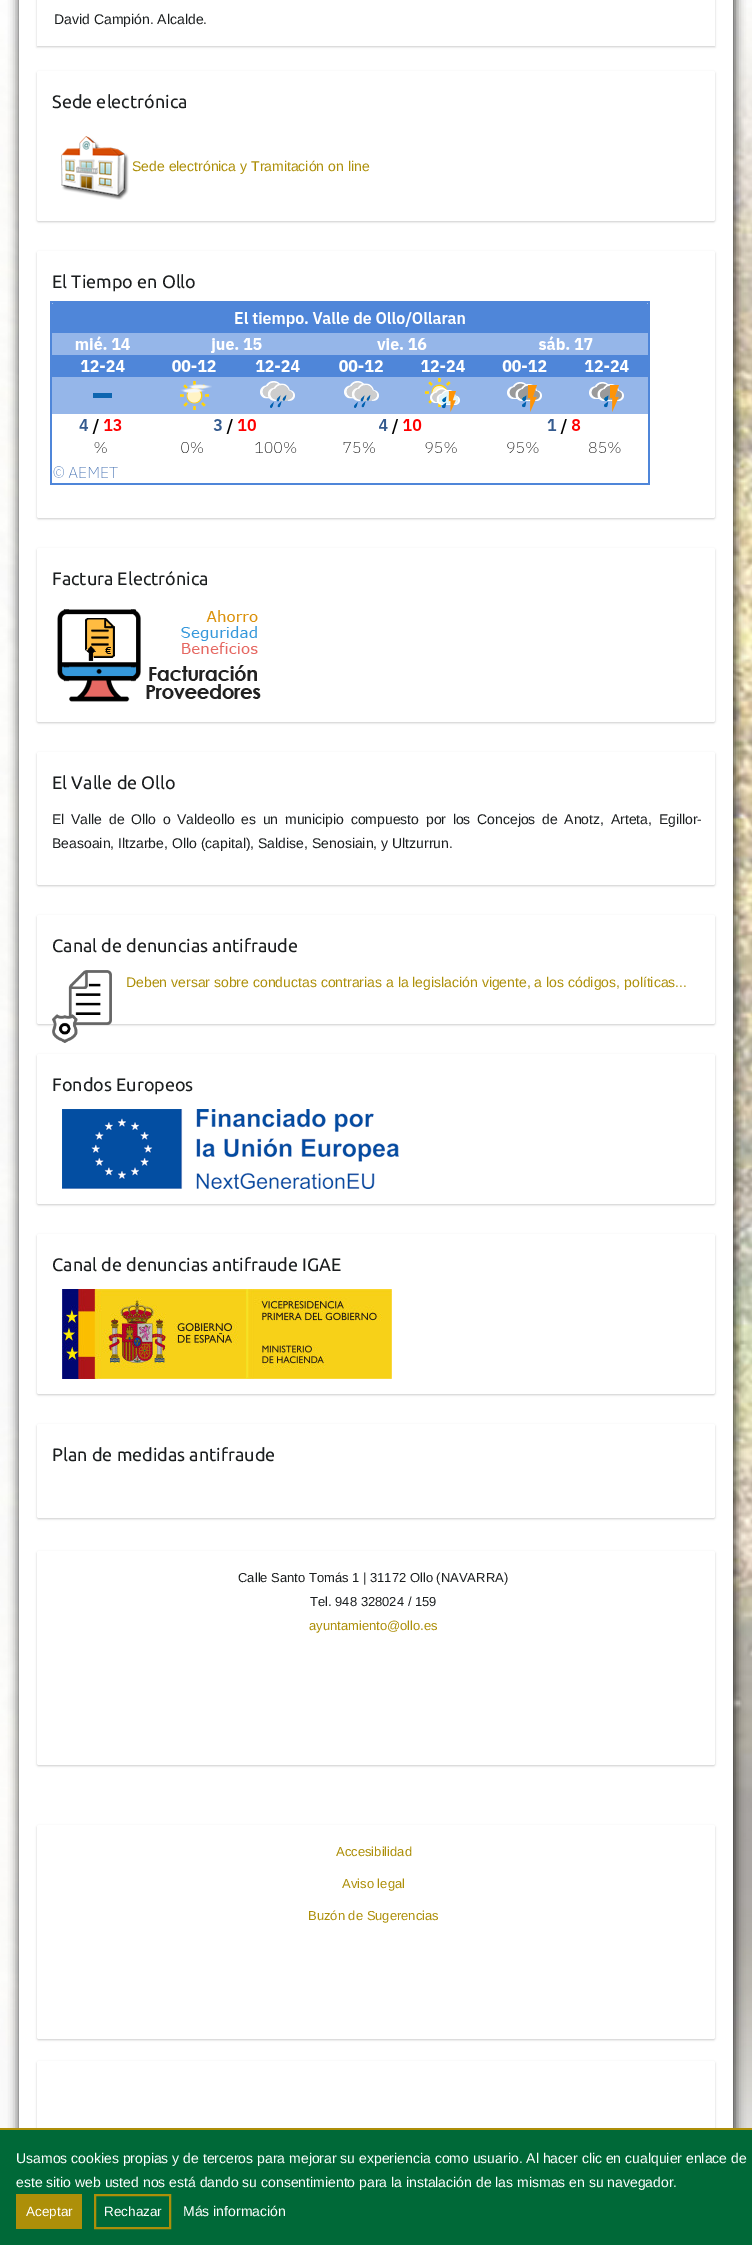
%!PS-Adobe-3.0
%%BoundingBox: 0 0 752 2245
%%LanguageLevel: 3
%%Pages: 1
%%EndComments
%%BeginProlog
/setalpha { dup .setfillconstantalpha .setstrokeconstantalpha } def
/rrect { 5 dict begin { /r /h /w /y /x } { exch def } forall
  x r add y moveto x w add y 2 copy h add r arct x w add y h add x 1 index r arct
  x y h add x y r arct x y 2 copy exch w add exch r arct closepath end } def
/softshadow { 12 dict begin { /a /b /q /h /w /y /x } { exch def } forall gsave /was 0 def
  9 -2 -9 { dup b mul 4 div /e exch def 1 sub .425 mul 2.718 exch exp 1 add a .99 .min exch div /now exch def
    1 1 now sub 1 was sub div sub setalpha /was now def
    w h .min e 2 mul add 0 gt { x e sub y e sub w e 2 mul add h e 2 mul add
      q e add b .6 mul add w h .min 2 div e add .min 0 .max rrect fill } if } for grestore end } def
/drawimage { 5 dict begin { /h /w /y /x /name } { exch def } forall
  gsave x y translate w h scale
  w h 8 [w 0 0 h 0 0] name (r) file false 3 colorimage grestore end } def
%%EndProlog
%%BeginSetup
<< /PageSize [752 2245] /PageUsesTransparency true >> setpagedevice
%%EndSetup
%%Page: 1 1
0 .pushpdf14devicefilter
0 2245 translate 1 -1 scale
4 setmiterlimit
1 setgray
0 0 752 2245 rectfill
(images/1.raw) 0 0 752 2128 drawimage
0 setgray
19 -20 716 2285 5 5 0.75 softshadow
1 setgray
19 0 714 2128 rectfill
gsave
newpath 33 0 moveto 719 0 lineto 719 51 lineto 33 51 lineto closepath 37 -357 moveto 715 -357 lineto 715 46 lineto 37 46 lineto closepath eoclip newpath
0 setgray
37 -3 678 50 0 1 0.2 softshadow
grestore
0 setgray
37 72 678 150 2 1 0.2 softshadow
1 setgray
37 71 678 150 2 rrect fill
(images/2.raw) 61 136 68 64 drawimage
0 setgray
37 252 678 267 2 1 0.2 softshadow
1 setgray
37 251 678 267 2 rrect fill
(images/3.raw) 50 301 600 184 drawimage
0 setgray
37 549 678 174 2 1 0.2 softshadow
1 setgray
37 548 678 174 2 rrect fill
(images/4.raw) 57 609 204 93 drawimage
0 setgray
37 753 678 133 2 1 0.2 softshadow
1 setgray
37 752 678 133 2 rrect fill
0 setgray
37 916 678 109 2 1 0.2 softshadow
1 setgray
37 915 678 109 2 rrect fill
(images/5.raw) 52 970 60 73 drawimage
0 setgray
37 1055 678 150 2 1 0.2 softshadow
1 setgray
37 1054 678 150 2 rrect fill
(images/6.raw) 62 1109 337 80 drawimage
0 setgray
37 1235 678 160 2 1 0.2 softshadow
1 setgray
37 1234 678 160 2 rrect fill
(images/7.raw) 62 1289 330 90 drawimage
0 setgray
37 1425 678 94 2 1 0.2 softshadow
1 setgray
37 1424 678 94 2 rrect fill
0 setgray
37 1552 678 214 2 1 0.2 softshadow
1 setgray
37 1551 678 214 2 rrect fill
0 setgray
37 1826 678 214 2 1 0.2 softshadow
1 setgray
37 1825 678 214 2 rrect fill
0 setgray
37 2062 678 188 2 1 0.2 softshadow
1 setgray
37 2061 678 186 2 rrect fill
0 0.412 0.22 setrgbcolor
0 2130 752 115 rectfill
0.678 0.561 0.035 setrgbcolor
0 2128 752 2 rectfill
16 2194 66 35 rectfill
2 setlinewidth
95 2195 75 33 rectstroke
/LiberationSans-Regular [14 0 0 -14 0 0] selectfont
0.106 0.118 0.122 setrgbcolor
54 24 moveto (David Campión. Alcalde.) show
/Ubuntu-Regular [18 0 0 -18 0 0] selectfont
52 108 moveto (Sede electrónica) show
/LiberationSans-Regular [14 0 0 -14 0 0] selectfont
0.678 0.561 0.035 setrgbcolor
132 171 moveto (Sede electrónica y Tramitación on line) show
/Ubuntu-Regular [18 0 0 -18 0 0] selectfont
0.106 0.118 0.122 setrgbcolor
52 288 moveto (El Tiempo en Ollo) show
52 585 moveto (Factura Electrónica) show
52 789 moveto (El Valle de Ollo) show
/LiberationSans-Regular [14 0 0 -14 0 0] selectfont
52 824 moveto 2.75 0 32 (El Valle de Ollo o Valdeollo es un municipio compuesto por los Concejos de Anotz, Arteta, Egillor-) widthshow
52 848 moveto (Beasoain, Iltzarbe, Ollo \(capital\), Saldise, Senosiain, y Ultzurrun.) show
/Ubuntu-Regular [18 0 0 -18 0 0] selectfont
52 952 moveto (Canal de denuncias antifraude) show
/LiberationSans-Regular [14 0 0 -14 0 0] selectfont
0.678 0.561 0.035 setrgbcolor
126 987 moveto (Deben versar sobre conductas contrarias a la legislación vigente, a los códigos, políticas...) show
/Ubuntu-Regular [18 0 0 -18 0 0] selectfont
0.106 0.118 0.122 setrgbcolor
52 1091 moveto (Fondos Europeos) show
52 1271 moveto (Canal de denuncias antifraude IGAE) show
52 1461 moveto (Plan de medidas antifraude) show
/LiberationSans-Regular [13 0 0 -13 0 0] selectfont
238 1582 moveto (Calle Santo Tomás 1 | 31172 Ollo \(NAVARRA\)) show
310 1606 moveto (Tel. 948 328024 / 159) show
0.678 0.561 0.035 setrgbcolor
309 1630 moveto (ayuntamiento@ollo.es) show
336 1856 moveto (Accesibilidad) show
342 1888 moveto (Aviso legal) show
308 1920 moveto (Buzón de Sugerencias) show
/LiberationSans-Regular [14 0 0 -14 0 0] selectfont
1 setgray
16 2163 moveto (Usamos cookies propias y de terceros para mejorar su experiencia como usuario. Al hacer clic en cualquier enlace de) show
16 2187 moveto (este sitio web usted nos está dando su consentimiento para la instalación de las mismas en su navegador.) show
/LiberationSans-Regular [13.5 0 0 -13.5 0 0] selectfont
26 2216 moveto (Aceptar) show
104 2216 moveto (Rechazar) show
/LiberationSans-Regular [14 0 0 -14 0 0] selectfont
183 2216 moveto (Más información) show
.poppdf14devicefilter showpage
%%EOF
